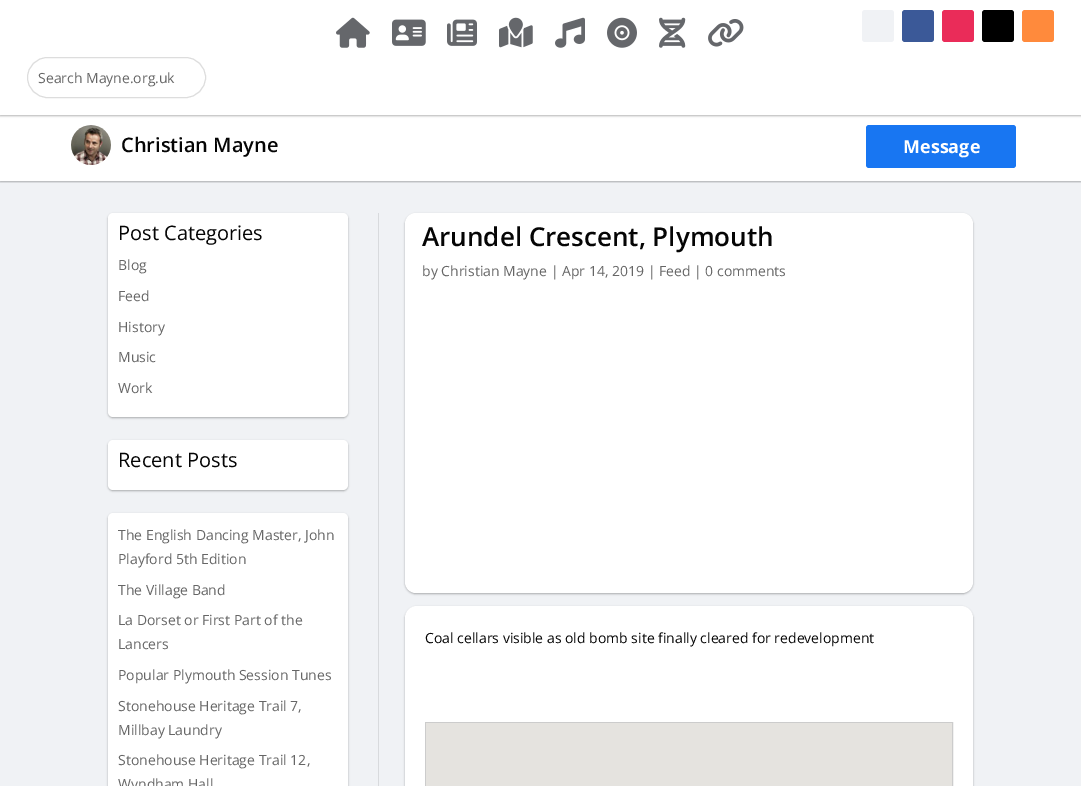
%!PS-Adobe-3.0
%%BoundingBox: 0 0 1081 786
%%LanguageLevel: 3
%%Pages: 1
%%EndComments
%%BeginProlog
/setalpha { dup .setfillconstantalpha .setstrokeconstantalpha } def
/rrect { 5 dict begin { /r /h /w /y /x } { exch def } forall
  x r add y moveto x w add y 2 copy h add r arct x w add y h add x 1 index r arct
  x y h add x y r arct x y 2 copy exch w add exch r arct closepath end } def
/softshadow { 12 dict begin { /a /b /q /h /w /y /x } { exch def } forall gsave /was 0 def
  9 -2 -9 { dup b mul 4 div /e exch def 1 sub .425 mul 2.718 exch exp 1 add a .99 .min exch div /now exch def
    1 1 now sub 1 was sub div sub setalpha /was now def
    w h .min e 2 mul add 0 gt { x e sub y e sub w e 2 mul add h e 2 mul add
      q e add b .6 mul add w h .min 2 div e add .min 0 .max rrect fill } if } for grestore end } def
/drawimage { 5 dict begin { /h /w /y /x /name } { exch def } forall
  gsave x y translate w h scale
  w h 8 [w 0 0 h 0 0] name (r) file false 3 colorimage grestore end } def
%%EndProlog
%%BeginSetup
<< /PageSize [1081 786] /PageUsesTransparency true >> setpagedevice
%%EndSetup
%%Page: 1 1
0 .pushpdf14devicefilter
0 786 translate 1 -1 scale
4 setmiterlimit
1 setgray
0 0 1081 786 rectfill
0 setgray
0 1 1081 115 0 1 0.3 softshadow
0.941 0.949 0.961 setrgbcolor
0 181 1081 605 rectfill
gsave
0 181 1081 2 rectclip
0 setgray
0 116 1081 66 0 1 0.3 softshadow
grestore
1 setgray
0 0 1081 115 rectfill
(images/1.raw) 336 17 34 31 drawimage
(images/2.raw) 392 19 34 27 drawimage
(images/3.raw) 447 19 30 27 drawimage
(images/4.raw) 499 17 34 31 drawimage
(images/5.raw) 555 17 30 31 drawimage
(images/6.raw) 607 17 30 31 drawimage
(images/7.raw) 659 17 27 31 drawimage
(images/8.raw) 708 19 36 28 drawimage
0.941 0.949 0.961 setrgbcolor
862 10 32 32 3 rrect fill
0.231 0.349 0.596 setrgbcolor
902 10 32 32 3 rrect fill
0.918 0.173 0.349 setrgbcolor
942 10 32 32 3 rrect fill
0 setgray
982 10 32 32 3 rrect fill
1 0.541 0.235 setrgbcolor
1022 10 32 32 3 rrect fill
0.867 setgray
27.5 57.5 178 40 20 rrect stroke
(images/9.raw) 71 125 40 40 drawimage
0.094 0.463 0.949 setrgbcolor
866 125 150 43 3 rrect fill
0.847 0.855 0.867 setrgbcolor
378 213 1 573 rectfill
0 setgray
108 214 240 204 5 1 0.3 softshadow
1 setgray
108 213 240 204 5 rrect fill
0 setgray
108 441 240 50 5 1 0.3 softshadow
1 setgray
108 440 240 50 5 rrect fill
0 setgray
108 514 240 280 5 1 0.3 softshadow
1 setgray
108 513 240 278 5 rrect fill
0 setgray
405 214 568 380 11 1 0.3 softshadow
1 setgray
405 213 568 380 11 rrect fill
0 setgray
405 607 568 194 12 1 0.3 softshadow
1 setgray
405 606 568 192 12 rrect fill
0.8 setgray
425.5 722.5 527 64 rectstroke
0.898 0.89 0.875 setrgbcolor
426 723 526 63 rectfill
/OpenSans-Regular [14 0 0 -14 0 0] selectfont
0.4 setgray
38 83 moveto (Search Mayne.org.uk) show
/OpenSans-SemiBold [20 0 0 -20 0 0] selectfont
0.02 setgray
121 152 moveto (Christian Mayne) show
/OpenSans-Bold [18 0 0 -18 0 0] selectfont
1 setgray
903 153 moveto (Message) show
/OpenSans-Regular [20 0 0 -20 0 0] selectfont
0.02 setgray
118 240 moveto (Post Categories) show
/OpenSans-Regular [14 0 0 -14 0 0] selectfont
0.4 setgray
118 270 moveto (Blog) show
118 301 moveto (Feed) show
118 332 moveto (History) show
118 362 moveto (Music) show
118 393 moveto (Work) show
/OpenSans-Regular [20 0 0 -20 0 0] selectfont
0.02 setgray
118 467 moveto (Recent Posts) show
/OpenSans-Regular [14 0 0 -14 0 0] selectfont
0.4 setgray
118 540 moveto (The English Dancing Master, John) show
118 564 moveto (Playford 5th Edition) show
118 595 moveto (The Village Band) show
118 625 moveto (La Dorset or First Part of the) show
118 649 moveto (Lancers) show
118 680 moveto (Popular Plymouth Session Tunes) show
118 711 moveto (Stonehouse Heritage Trail 7,) show
118 735 moveto (Millbay Laundry) show
118 765 moveto (Stonehouse Heritage Trail 12,) show
118 789 moveto (Wyndham Hall) show
/OpenSans-SemiBold [26 0 0 -26 0 0] selectfont
0.02 setgray
422 246 moveto (Arundel Crescent, Plymouth) show
/OpenSans-Regular [14 0 0 -14 0 0] selectfont
0.4 setgray
422 276 moveto (by Christian Mayne | Apr 14, 2019 | Feed | 0 comments) show
0.02 setgray
425 643 moveto (Coal cellars visible as old bomb site finally cleared for redevelopment) show
.poppdf14devicefilter showpage
%%EOF
